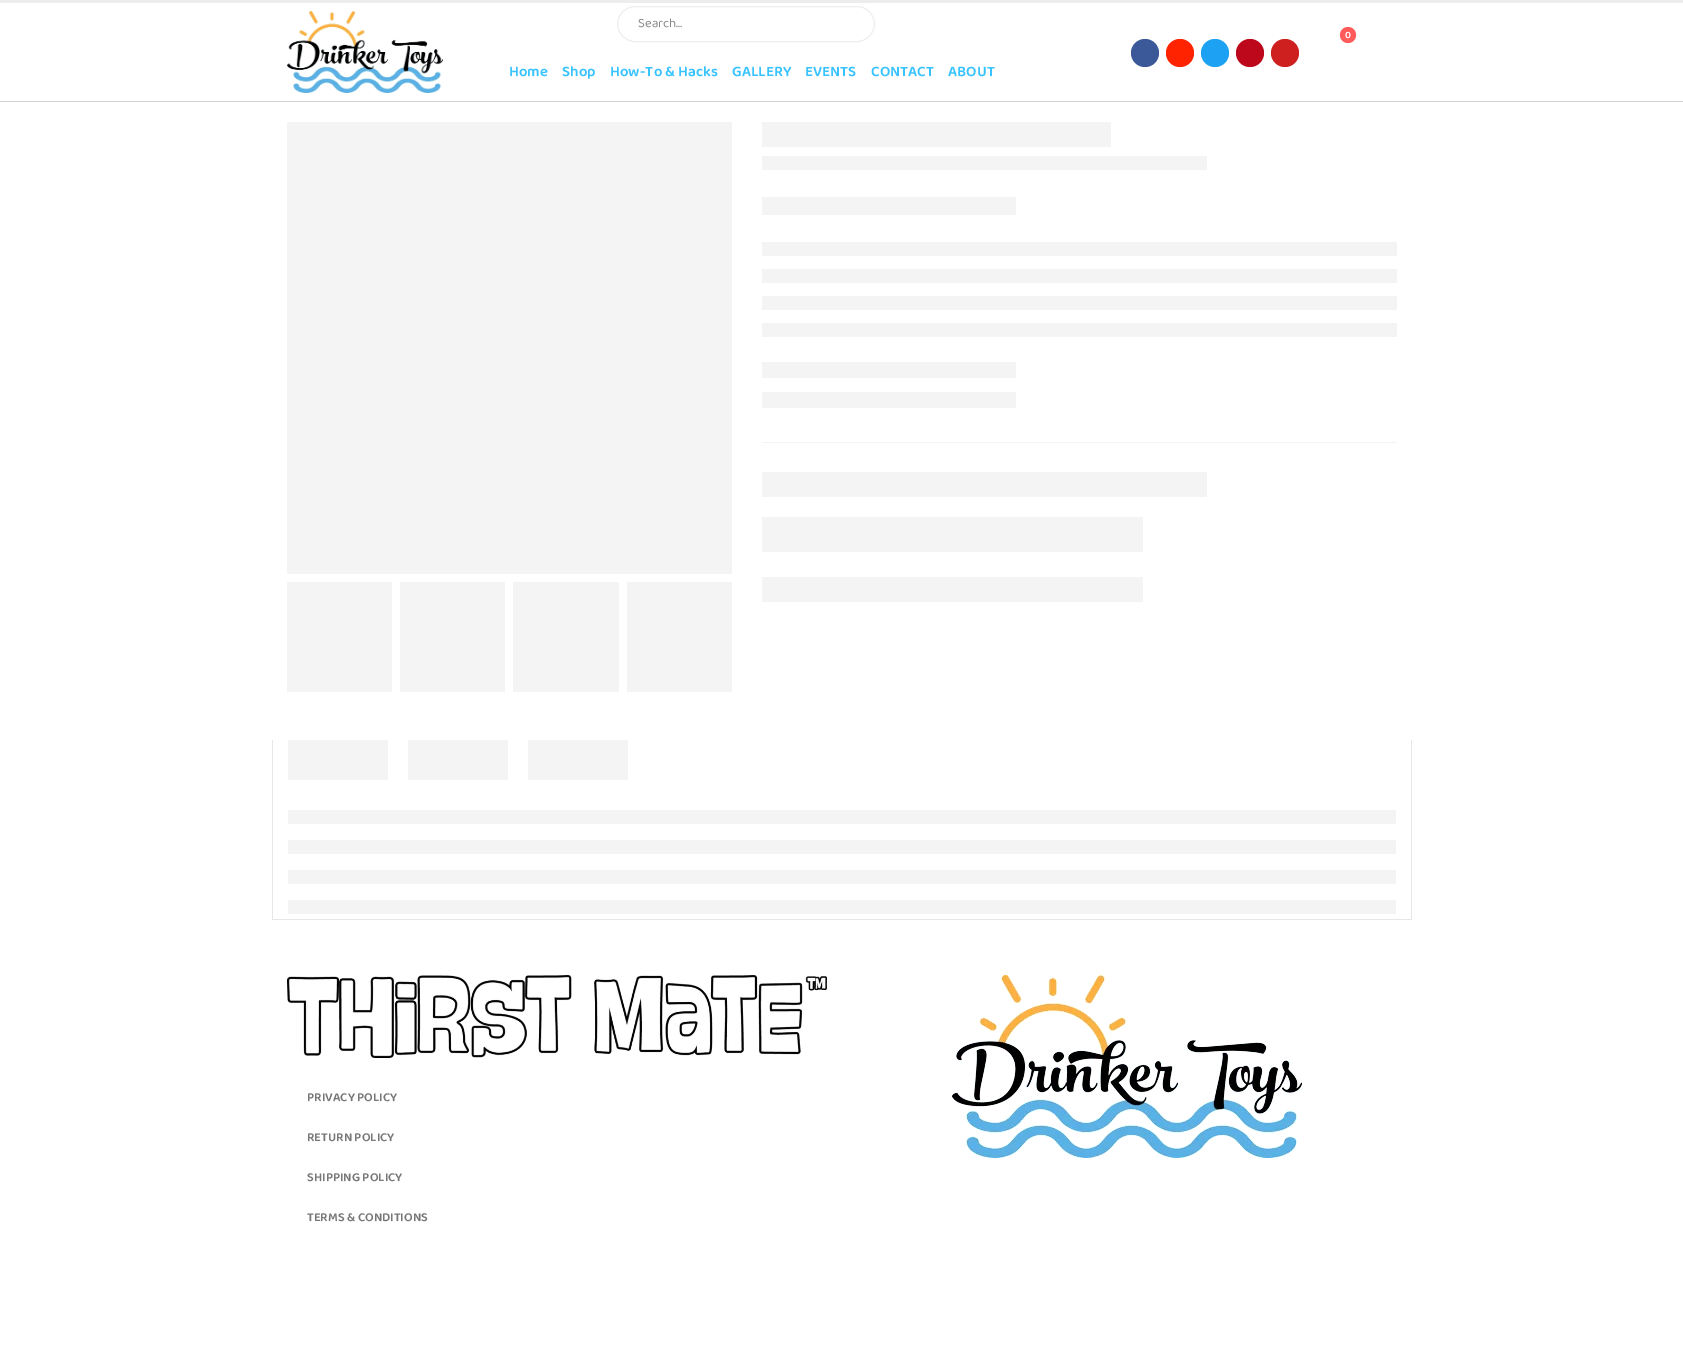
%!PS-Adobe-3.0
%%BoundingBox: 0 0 1683 1363
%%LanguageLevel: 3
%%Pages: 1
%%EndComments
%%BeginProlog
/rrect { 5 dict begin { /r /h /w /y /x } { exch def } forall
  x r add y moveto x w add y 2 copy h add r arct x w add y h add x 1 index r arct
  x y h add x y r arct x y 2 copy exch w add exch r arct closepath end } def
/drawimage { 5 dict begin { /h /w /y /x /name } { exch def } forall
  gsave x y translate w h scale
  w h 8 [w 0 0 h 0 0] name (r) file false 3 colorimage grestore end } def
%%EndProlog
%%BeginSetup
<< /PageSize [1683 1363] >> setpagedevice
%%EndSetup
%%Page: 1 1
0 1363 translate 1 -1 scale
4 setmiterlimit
1 setgray
0 0 1683 1363 rectfill
0.929 setgray
0 0 1683 3 rectfill
0.827 setgray
0 101 1683 1 rectfill
(images/1.raw) 287 11 156 82 drawimage
0.933 setgray
617.5 6.5 257 35 17.5 rrect stroke
1 0.357 0.357 setrgbcolor
newpath 1348 35 8 0 360 arc closepath fill
0.231 0.349 0.596 setrgbcolor
newpath 1145 53 14 0 360 arc closepath fill
1 0.137 0.004 setrgbcolor
newpath 1180 53 14 0 360 arc closepath fill
0.114 0.631 0.949 setrgbcolor
newpath 1215 53 14 0 360 arc closepath fill
0.741 0.031 0.11 setrgbcolor
newpath 1250 53 14 0 360 arc closepath fill
0.804 0.125 0.122 setrgbcolor
newpath 1285 53 14 0 360 arc closepath fill
0.957 setgray
627 582 105 110 rectfill
513 582 106 110 rectfill
400 582 105 110 rectfill
287 582 105 110 rectfill
287 122 445 452 rectfill
762 577 381 25 rectfill
762 517 381 35 rectfill
762 472 445 25 rectfill
762 442 635 1 rectfill
762 392 254 16 rectfill
762 362 254 16 rectfill
762 323 635 14 rectfill
762 296 635 14 rectfill
762 269 635 14 rectfill
762 242 635 14 rectfill
762 197 254 18 rectfill
762 156 445 14 rectfill
762 122 349 25 rectfill
0.906 setgray
1411 740 1 180 rectfill
272 919 1140 1 rectfill
272 740 1 180 rectfill
0.957 setgray
288 900 1108 14 rectfill
288 870 1108 14 rectfill
288 840 1108 14 rectfill
288 810 1108 14 rectfill
528 740 100 40 rectfill
408 740 100 40 rectfill
288 740 100 40 rectfill
(images/2.raw) 287 975 540 83 drawimage
(images/3.raw) 952 975 350 183 drawimage
/Baloo2-Regular [13 0 0 -13 0 0] selectfont
0.533 setgray
638 27 moveto (Search…) show
/Baloo2-SemiBold [15 0 0 -15 0 0] selectfont
0.216 0.765 1 setrgbcolor
509 76 moveto (Home) show
562 76 moveto (Shop) show
610 76 moveto (How-To & Hacks) show
732 76 moveto (GALLERY) show
805 76 moveto (EVENTS) show
871 76 moveto (CONTACT) show
948 76 moveto (ABOUT) show
/Baloo2-SemiBold [10 0 0 -10 0 0] selectfont
1 setgray
1345 38 moveto (0) show
/Baloo2-SemiBold [12.5 0 0 -12.5 0 0] selectfont
0.467 setgray
307 1101 moveto (PRIVACY POLICY) show
307 1141 moveto (RETURN POLICY) show
307 1181 moveto (SHIPPING POLICY) show
307 1221 moveto (TERMS & CONDITIONS) show
showpage
%%EOF
